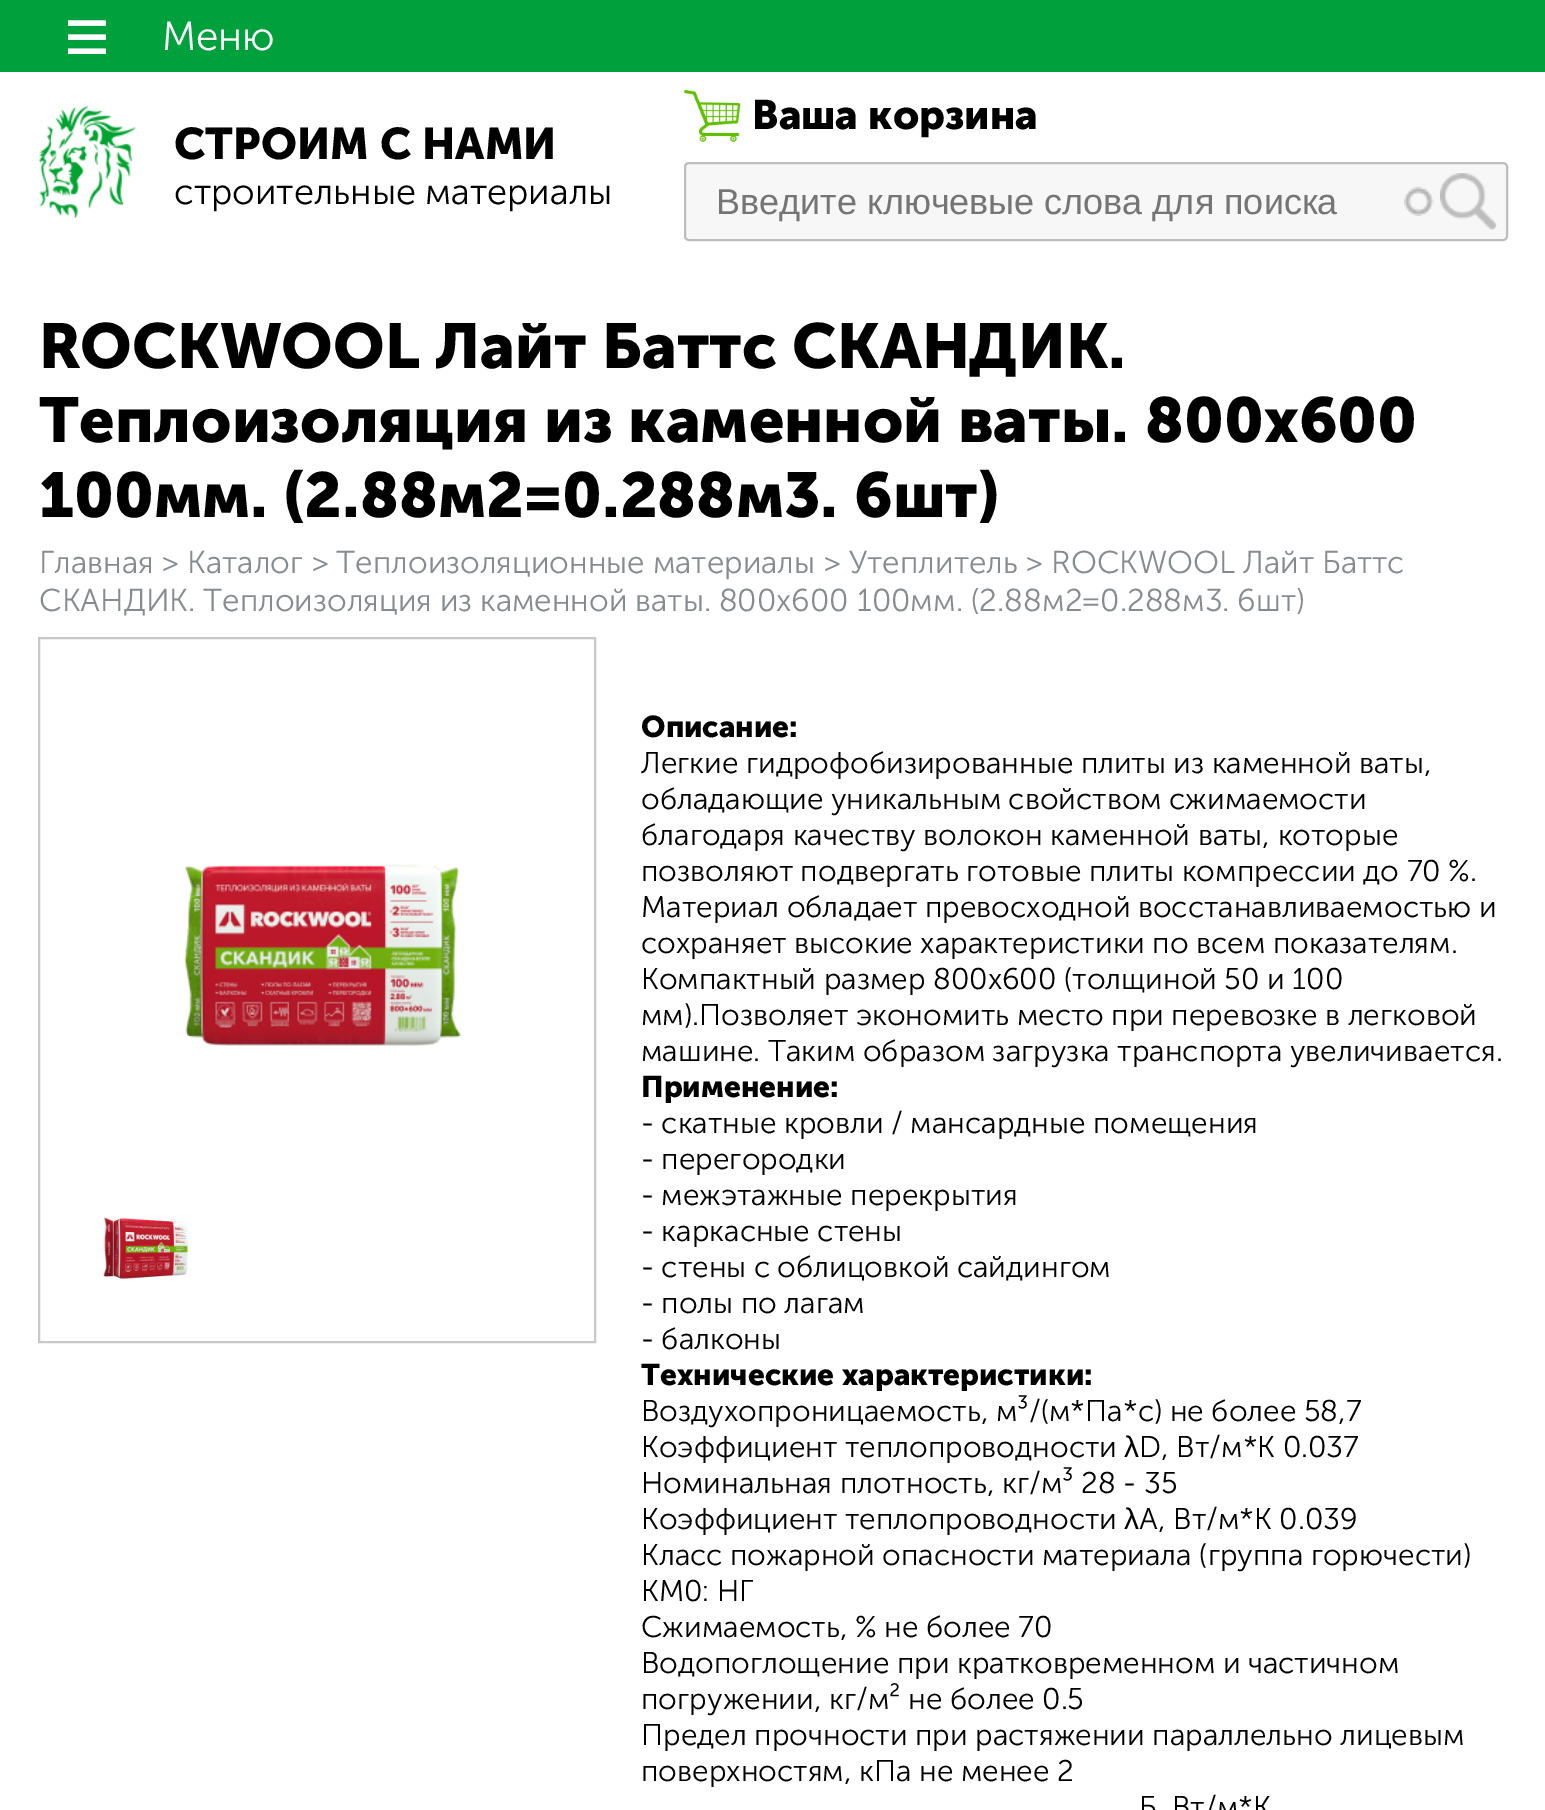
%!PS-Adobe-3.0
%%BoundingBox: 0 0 1545 1810
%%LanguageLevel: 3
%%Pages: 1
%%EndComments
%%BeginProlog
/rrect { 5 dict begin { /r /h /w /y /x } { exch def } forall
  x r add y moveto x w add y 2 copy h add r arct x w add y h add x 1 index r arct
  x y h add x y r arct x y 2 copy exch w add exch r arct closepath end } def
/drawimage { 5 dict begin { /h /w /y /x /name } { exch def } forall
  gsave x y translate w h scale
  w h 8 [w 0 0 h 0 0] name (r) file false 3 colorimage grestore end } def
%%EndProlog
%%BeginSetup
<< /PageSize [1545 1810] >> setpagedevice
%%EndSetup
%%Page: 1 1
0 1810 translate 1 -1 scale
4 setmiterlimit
1 setgray
0 0 1545 1810 rectfill
0 0.631 0.239 setrgbcolor
0 0 1545 72 rectfill
(images/1.raw) 68 20 38 34 drawimage
(images/2.raw) 39 105 97 114 drawimage
(images/3.raw) 684 90 57 52 drawimage
0.969 setgray
684 162 824 79 5 rrect fill
(images/4.raw) 1404 186 30 30 drawimage
0.741 setgray
2 setlinewidth
685 163 822 77 4 rrect stroke
(images/5.raw) 1440 173 57 57 drawimage
0.784 setgray
39 638 556 704 rectstroke
(images/6.raw) 184 864 277 182 drawimage
(images/7.raw) 103 1217 85 62 drawimage
/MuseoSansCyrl-Light [40.5 0 0 -40.5 0 0] selectfont
1 setgray
162 50 moveto (Меню) show
/MuseoSansCyrl-Bold [44 0 0 -44 0 0] selectfont
0 setgray
174 159 moveto (СТРОИМ С НАМИ) show
/MuseoSansCyrl-Light [36.25 0 0 -36.25 0 0] selectfont
174 204 moveto (строительные материалы) show
/MuseoSansCyrl-Bold [41 0 0 -41 0 0] selectfont
752 129 moveto (Ваша корзина) show
/LiberationSans-Regular [36 0 0 -36 0 0] selectfont
0.459 setgray
716 214 moveto (Введите ключевые слова для поиска) show
/MuseoSansCyrl-Bold [63 0 0 -63 0 0] selectfont
0 setgray
39 368 moveto (ROCKWOOL Лайт Баттс СКАНДИК.) show
39 442 moveto (Теплоизоляция из каменной ваты. 800х600) show
39 517 moveto (100мм. \(2.88м2=0.288м3. 6шт\)) show
/MuseoSansCyrl-Light [31.5 0 0 -31.5 0 0] selectfont
0.522 0.545 0.557 setrgbcolor
39 573 moveto (Главная > Каталог > Теплоизоляционные материалы > Утеплитель > ROCKWOOL Лайт Баттс) show
39 611 moveto (СКАНДИК. Теплоизоляция из каменной ваты. 800х600 100мм. \(2.88м2=0.288м3. 6шт\)) show
/MuseoSansCyrl-Bold [29.9 0 0 -29.9 0 0] selectfont
0 setgray
641 737 moveto (Описание:) show
/MuseoSansCyrl-Light [29.9 0 0 -29.9 0 0] selectfont
641 773 moveto (Легкие гидрофобизированные плиты из каменной ваты,) show
641 809 moveto (обладающие уникальным свойством сжимаемости) show
641 845 moveto (благодаря качеству волокон каменной ваты, которые) show
641 881 moveto (позволяют подвергать готовые плиты компрессии до 70 %.) show
641 917 moveto (Материал обладает превосходной восстанавливаемостью и) show
641 953 moveto (сохраняет высокие характеристики по всем показателям.) show
641 989 moveto (Компактный размер 800х600 \(толщиной 50 и 100) show
641 1025 moveto (мм\).Позволяет экономить место при перевозке в легковой) show
641 1061 moveto (машине. Таким образом загрузка транспорта увеличивается.) show
/MuseoSansCyrl-Bold [29.9 0 0 -29.9 0 0] selectfont
641 1097 moveto (Применение:) show
/MuseoSansCyrl-Light [29.9 0 0 -29.9 0 0] selectfont
641 1133 moveto (- скатные кровли / мансардные помещения) show
641 1169 moveto (- перегородки) show
641 1205 moveto (- межэтажные перекрытия) show
641 1241 moveto (- каркасные стены) show
641 1277 moveto (- стены с облицовкой сайдингом) show
641 1313 moveto (- полы по лагам) show
641 1349 moveto (- балконы) show
/MuseoSansCyrl-Bold [29.9 0 0 -29.9 0 0] selectfont
641 1385 moveto (Технические характеристики:) show
/MuseoSansCyrl-Light [29.9 0 0 -29.9 0 0] selectfont
641 1421 moveto (Воздухопроницаемость, м³/\(м*Па*с\) не более 58,7) show
641 1457 moveto (Коэффициент теплопроводности) show
/LiberationSans-Regular [29.9 0 0 -29.9 0 0] selectfont
1124 1457 moveto (λ) show
/MuseoSansCyrl-Light [29.9 0 0 -29.9 0 0] selectfont
1139 1457 moveto (D, Вт/м*К 0.037) show
641 1493 moveto (Номинальная плотность, кг/м³ 28 - 35) show
641 1529 moveto (Коэффициент теплопроводности) show
/LiberationSans-Regular [29.9 0 0 -29.9 0 0] selectfont
1124 1529 moveto (λ) show
/MuseoSansCyrl-Light [29.9 0 0 -29.9 0 0] selectfont
1139 1529 moveto (А, Вт/м*К 0.039) show
641 1565 moveto (Класс пожарной опасности материала \(группа горючести\)) show
641 1601 moveto (КМ0: НГ) show
641 1637 moveto (Сжимаемость, % не более 70) show
641 1673 moveto (Водопоглощение при кратковременном и частичном) show
641 1709 moveto (погружении, кг/м² не более 0.5) show
641 1745 moveto (Предел прочности при растяжении параллельно лицевым) show
641 1781 moveto (поверхностям, кПа не менее 2) show
1139 1817 moveto (Б, Вт/м*К) show
showpage
%%EOF
